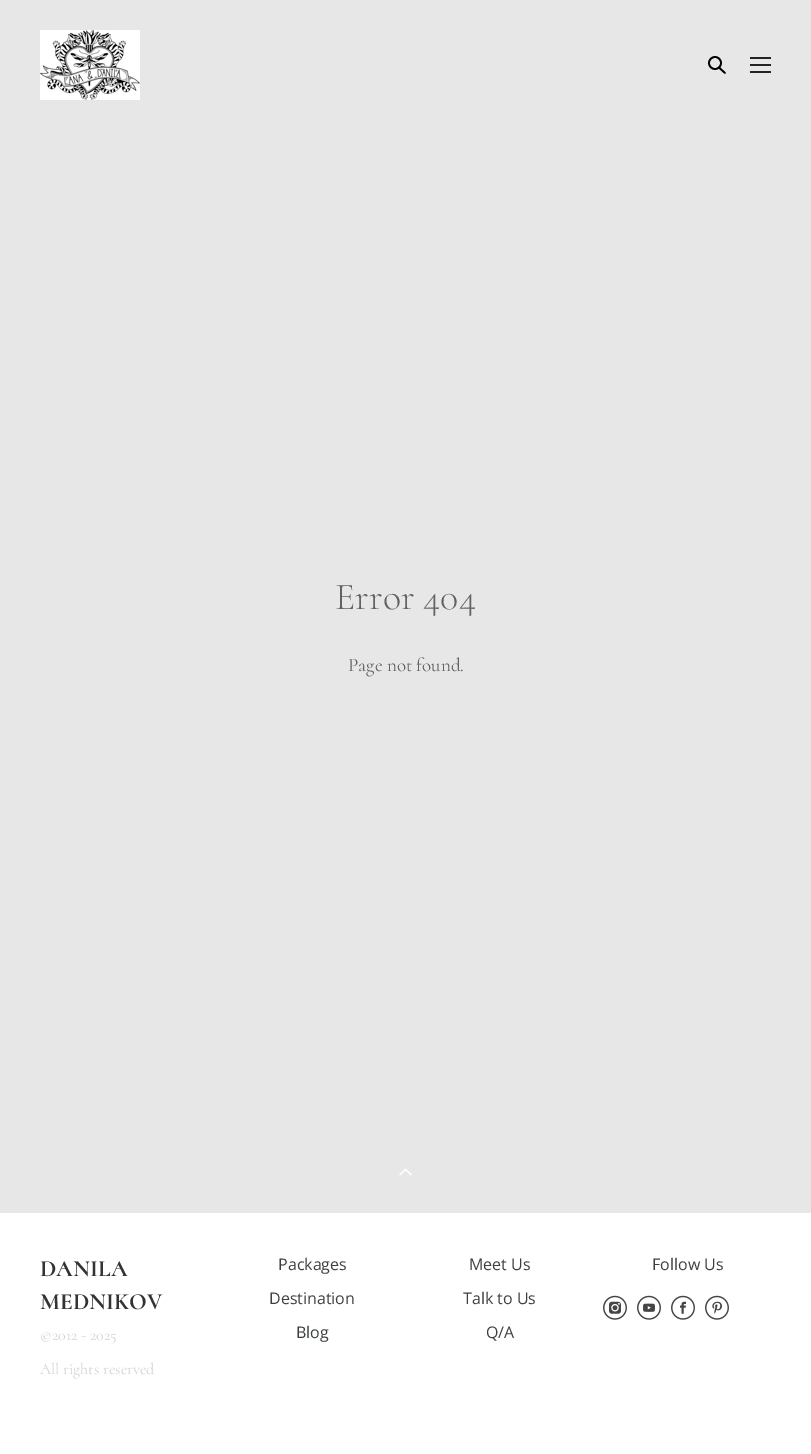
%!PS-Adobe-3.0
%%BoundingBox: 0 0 811 1454
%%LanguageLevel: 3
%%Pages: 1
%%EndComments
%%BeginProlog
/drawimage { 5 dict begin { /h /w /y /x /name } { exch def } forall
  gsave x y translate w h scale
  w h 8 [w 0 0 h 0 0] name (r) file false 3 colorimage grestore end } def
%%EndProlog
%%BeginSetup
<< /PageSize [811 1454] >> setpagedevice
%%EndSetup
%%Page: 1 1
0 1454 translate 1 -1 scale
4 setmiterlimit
0.906 setgray
0 0 811 1454 rectfill
(images/1.raw) 40 30 100 70 drawimage
0 setgray
1.7 setlinewidth
newpath 715 63 6 0 360 arc closepath stroke
1 setlinecap
1 setlinejoin
newpath 719 67.5 moveto 725 73 lineto stroke
0.137 setgray
750 57 21 2 rectfill
750 64 21 2 rectfill
750 71 21 2 rectfill
(images/2.raw) 399 1168 13 8 drawimage
1 setgray
0 1213 811 241 rectfill
(images/3.raw) 603 1295 24 25 drawimage
(images/4.raw) 637 1295 24 25 drawimage
(images/5.raw) 671 1295 24 25 drawimage
(images/6.raw) 705 1295 24 25 drawimage
/Cormorant-Light [38 0 0 -38 0 0] selectfont
0.384 setgray
335 609 moveto (Error 404) show
/Cormorant-Regular [19 0 0 -19 0 0] selectfont
348 671 moveto (Page not found.) show
/Cormorant-Bold [23.25 0 0 -23.25 0 0] selectfont
0.2 setgray
40 1276 moveto (DANILA) show
40 1309 moveto (MEDNIKOV) show
/Cormorant-Regular [16 0 0 -16 0 0] selectfont
0.827 setgray
40 1340 moveto (©2012 - 2025) show
40 1374 moveto (All rights reserved) show
/OpenSans-Regular [16 0 0 -16 0 0] selectfont
0.235 0.251 0.263 setrgbcolor
278 1270 moveto (Packages) show
269 1304 moveto (Destination) show
296 1338 moveto (Blog) show
469 1270 moveto (Meet Us) show
463 1304 moveto (Talk to Us) show
486 1338 moveto (Q/A) show
652 1270 moveto (Follow Us) show
showpage
%%EOF
